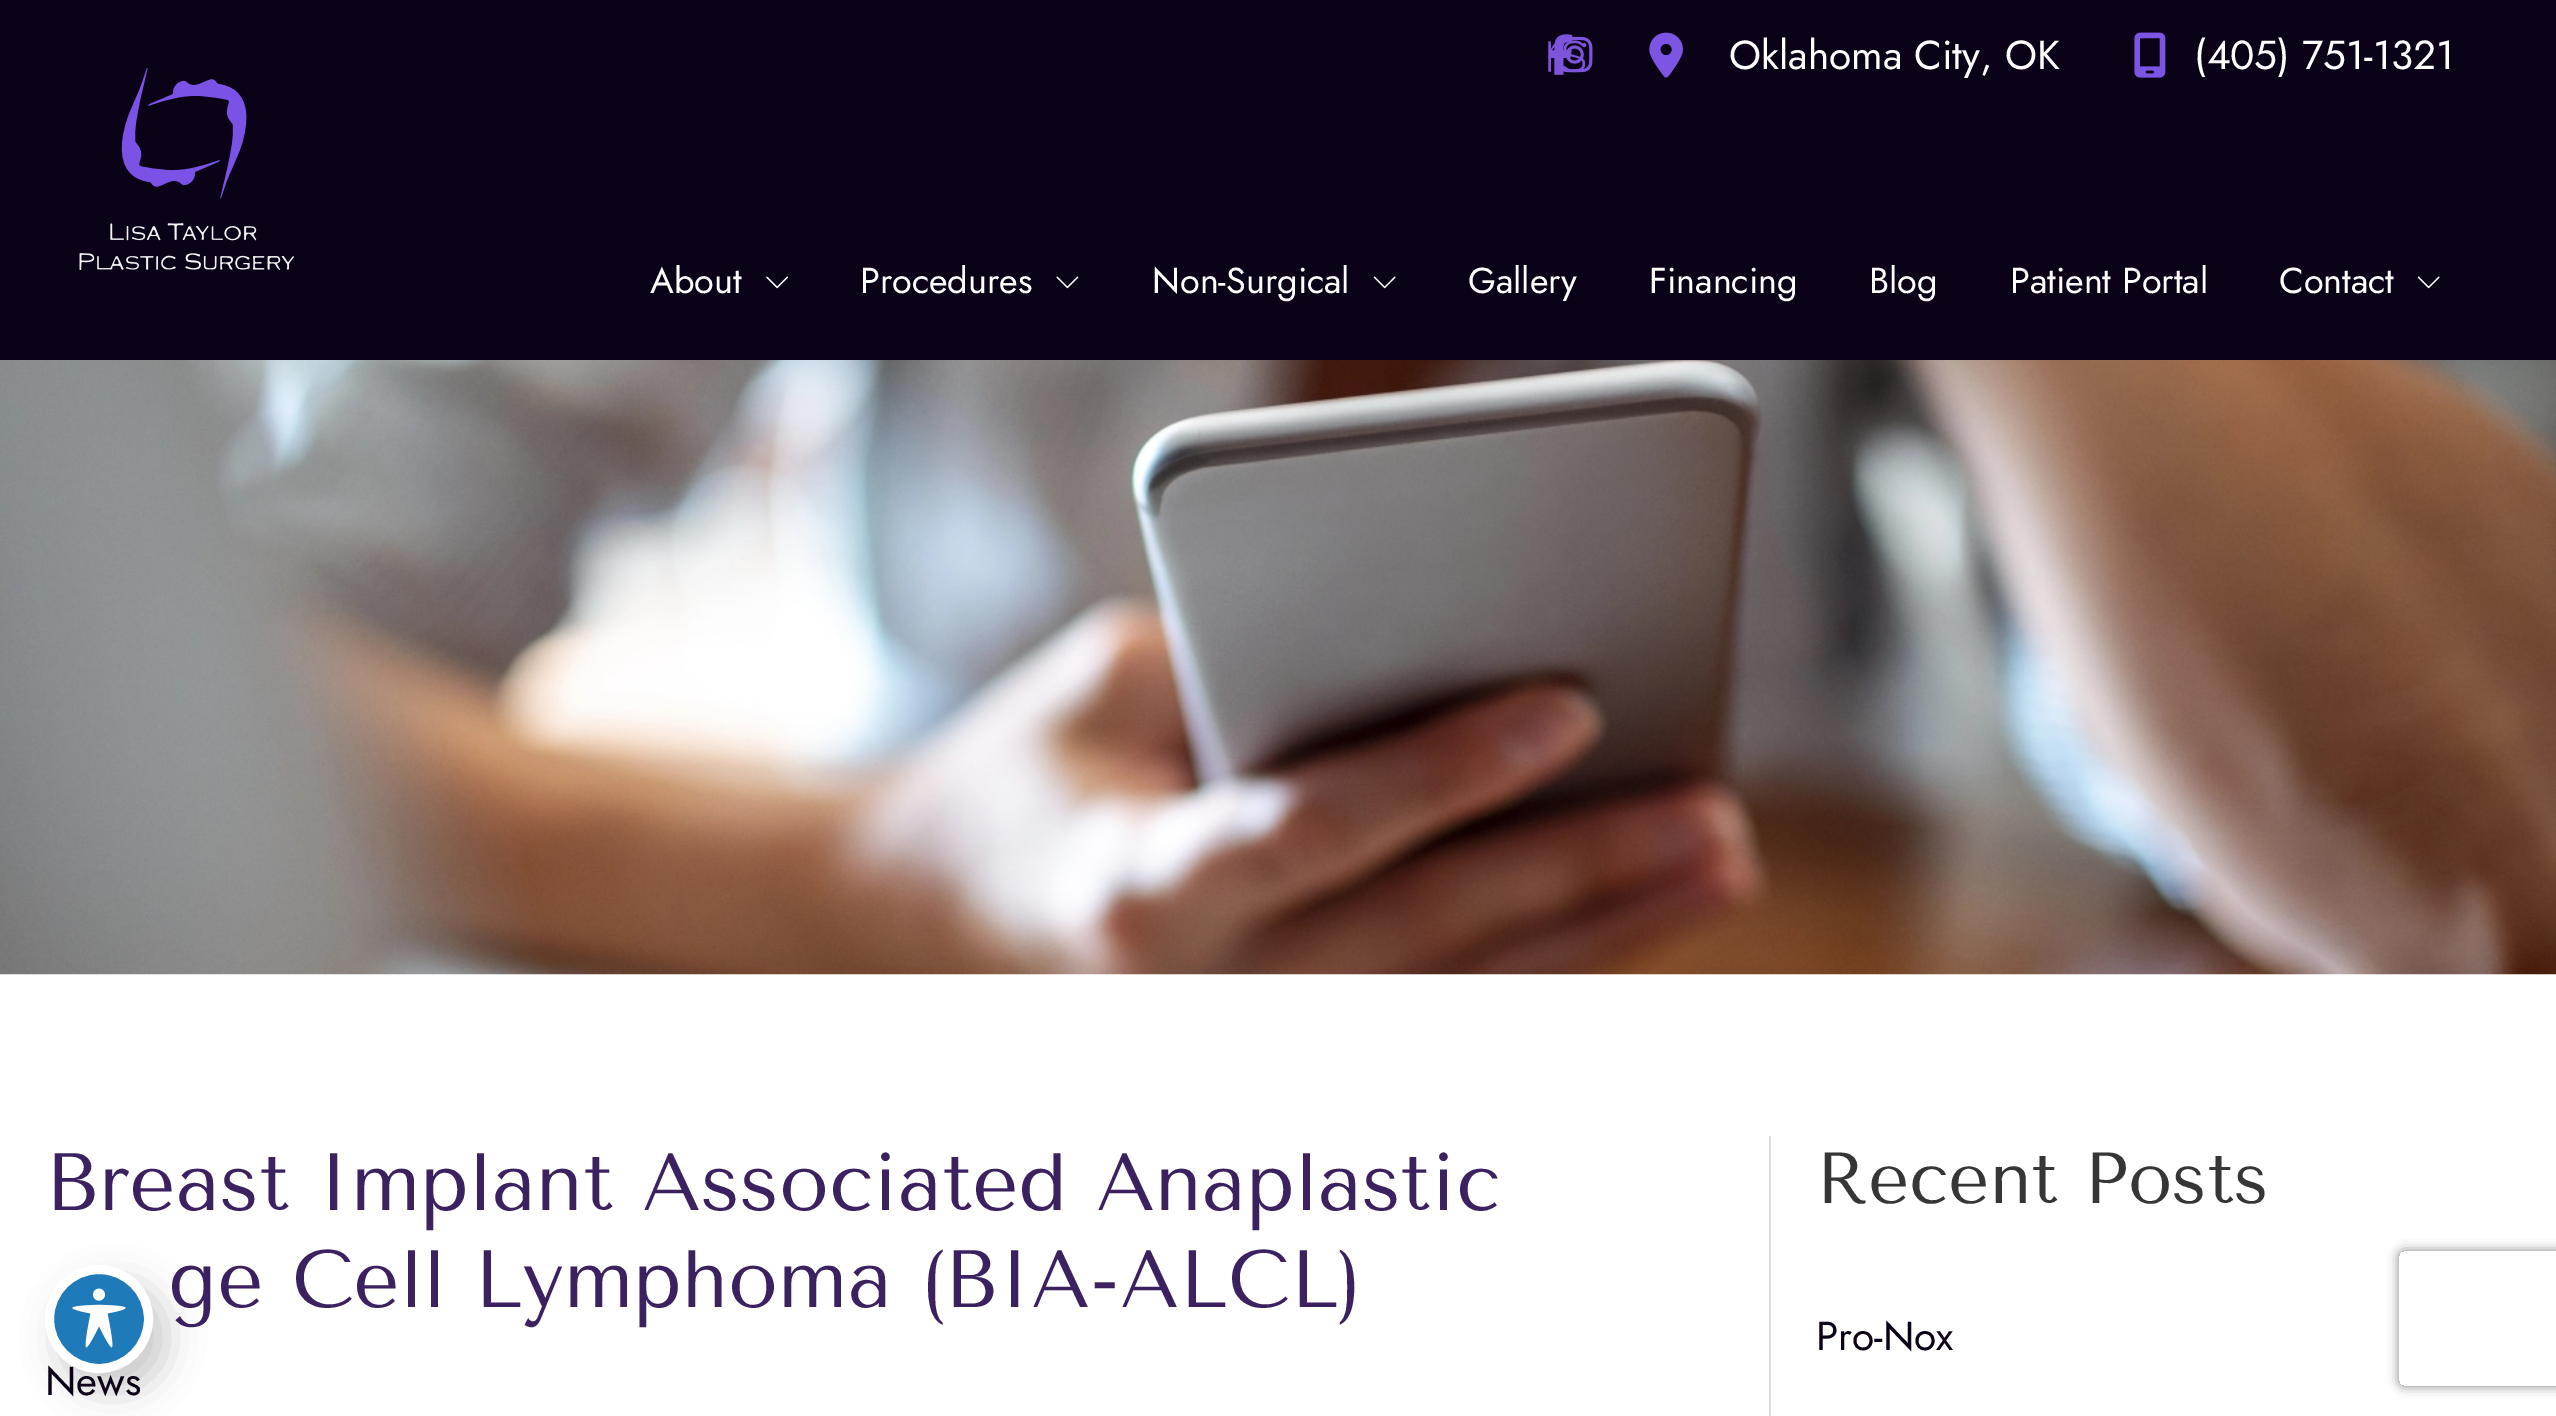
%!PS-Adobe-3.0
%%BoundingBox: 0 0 2556 1416
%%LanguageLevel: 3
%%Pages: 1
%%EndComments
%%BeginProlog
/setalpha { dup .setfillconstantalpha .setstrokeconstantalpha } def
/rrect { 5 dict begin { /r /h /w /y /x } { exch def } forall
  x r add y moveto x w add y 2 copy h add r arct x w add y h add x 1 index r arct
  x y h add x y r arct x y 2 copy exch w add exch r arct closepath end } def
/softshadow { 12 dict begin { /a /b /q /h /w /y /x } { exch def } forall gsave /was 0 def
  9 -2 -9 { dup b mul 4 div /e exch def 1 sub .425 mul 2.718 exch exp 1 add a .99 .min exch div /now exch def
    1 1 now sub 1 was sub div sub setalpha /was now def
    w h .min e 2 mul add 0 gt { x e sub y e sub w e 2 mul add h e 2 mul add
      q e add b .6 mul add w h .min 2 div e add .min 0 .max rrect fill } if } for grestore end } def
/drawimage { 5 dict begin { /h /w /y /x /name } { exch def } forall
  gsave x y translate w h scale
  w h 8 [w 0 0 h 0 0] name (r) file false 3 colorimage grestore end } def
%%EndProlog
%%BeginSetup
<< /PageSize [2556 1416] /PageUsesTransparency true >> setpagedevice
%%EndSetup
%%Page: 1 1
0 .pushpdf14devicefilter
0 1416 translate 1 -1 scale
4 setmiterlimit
1 setgray
0 0 2556 1416 rectfill
0.043 0.008 0.09 setrgbcolor
0 0 2556 360 rectfill
(images/1.raw) 1551 34 22 41 drawimage
(images/2.raw) 1563 36 30 37 drawimage
(images/3.raw) 1548 40 38 33 drawimage
(images/4.raw) 1649 32 34 46 drawimage
(images/5.raw) 2134 32 32 46 drawimage
(images/6.raw) 79 68 215 202 drawimage
(images/7.raw) 766 276 22 13 drawimage
(images/8.raw) 1056 276 23 13 drawimage
(images/9.raw) 1373 276 23 13 drawimage
(images/9.raw) 2417 276 23 13 drawimage
(images/10.raw) 0 360 2556 615 drawimage
0.867 setgray
1769 1136 2 280 rectfill
0 setgray
59 1283 108 108 54 18 0.2 softshadow
gsave
newpath 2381 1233 moveto 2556 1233 lineto 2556 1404 lineto 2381 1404 lineto closepath 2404 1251 moveto 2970 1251 lineto 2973 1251 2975 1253 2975 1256 curveto 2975 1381 lineto 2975 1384 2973 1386 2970 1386 curveto 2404 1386 lineto 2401 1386 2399 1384 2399 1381 curveto 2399 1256 lineto 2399 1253 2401 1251 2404 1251 curveto closepath eoclip newpath
0.502 setgray
2399 1251 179 135 5 5.5 1 softshadow
grestore
/Jost-Regular [40.5 0 0 -40.5 0 0] selectfont
1 setgray
1729 69 moveto (Oklahoma City, OK) show
2194 69 moveto (\(405\) 751-1321) show
/Jost-Regular [36 0 0 -36 0 0] selectfont
650 293 moveto (About) show
860 293 moveto (Procedures) show
1152 293 moveto (Non-Surgical) show
1468 293 moveto (Gallery) show
1649 293 moveto (Financing) show
1869 293 moveto (Blog) show
2010 293 moveto (Patient Portal) show
2279 293 moveto (Contact) show
/TenorSans-Regular [81 0 0 -81 0 0] selectfont
0.235 0.129 0.376 setrgbcolor
45 1210 moveto (Breast Implant Associated Anaplastic) show
168 1307 moveto (ge Cell Lymphoma \(BIA-ALCL\)) show
/Jost-Regular [40.5 0 0 -40.5 0 0] selectfont
0.043 0.008 0.09 setrgbcolor
45 1395 moveto (News) show
/TenorSans-Regular [72 0 0 -72 0 0] selectfont
0.212 setgray
1816 1203 moveto (Recent Posts) show
/Jost-Regular [40.5 0 0 -40.5 0 0] selectfont
0.043 0.008 0.09 setrgbcolor
1816 1350 moveto (Pro-Nox) show
0.118 0.478 0.725 setrgbcolor
newpath 99 1319 49.5 0 360 arc closepath gsave fill grestore
1 setgray
9 setlinewidth
stroke
(images/11.raw) 72 1288 54 60 drawimage
.poppdf14devicefilter showpage
%%EOF
